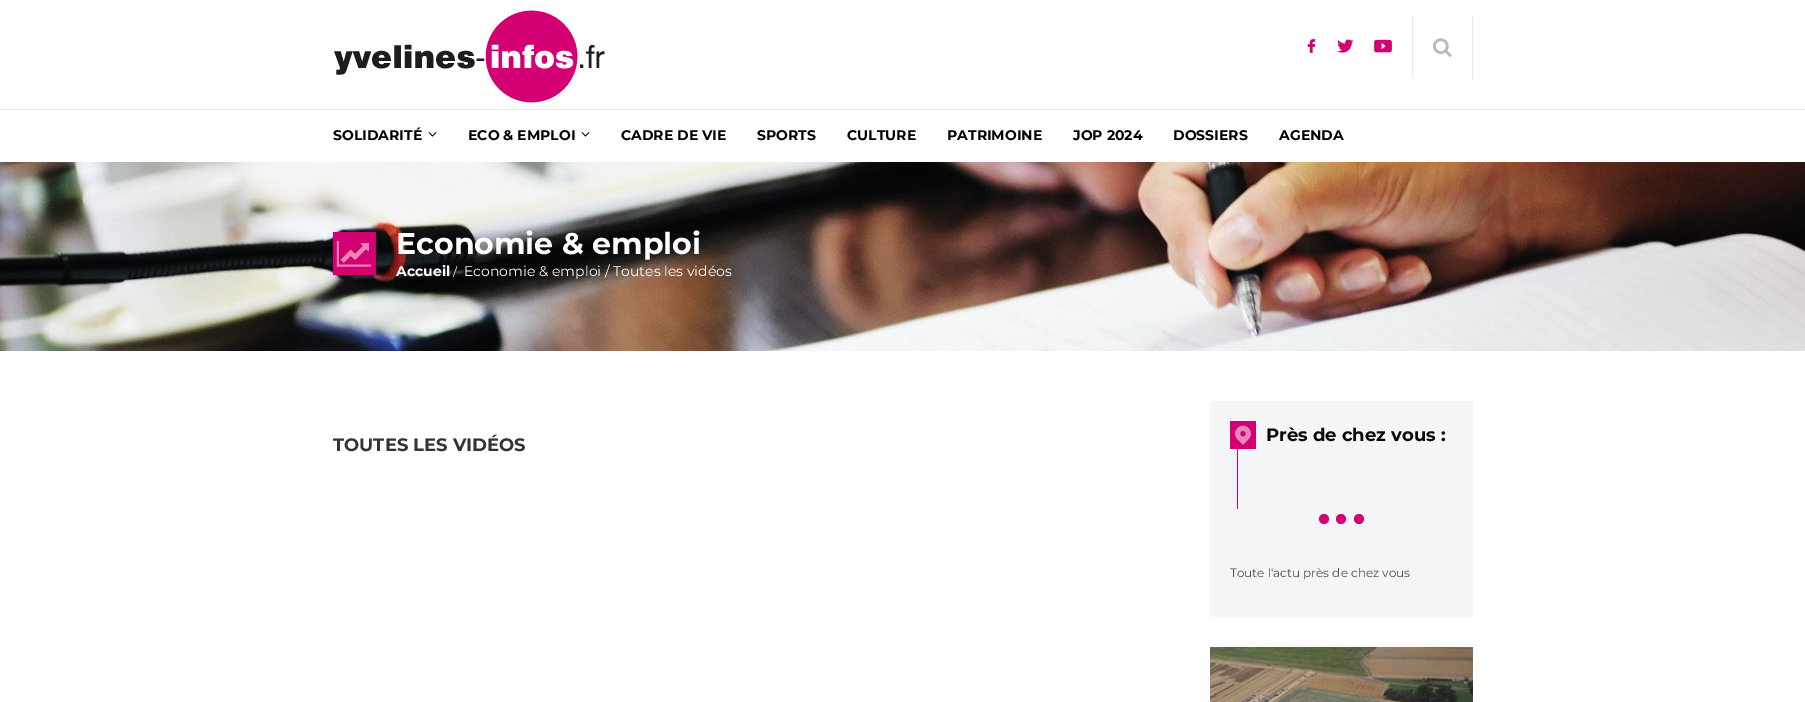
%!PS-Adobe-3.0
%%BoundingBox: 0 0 1805 702
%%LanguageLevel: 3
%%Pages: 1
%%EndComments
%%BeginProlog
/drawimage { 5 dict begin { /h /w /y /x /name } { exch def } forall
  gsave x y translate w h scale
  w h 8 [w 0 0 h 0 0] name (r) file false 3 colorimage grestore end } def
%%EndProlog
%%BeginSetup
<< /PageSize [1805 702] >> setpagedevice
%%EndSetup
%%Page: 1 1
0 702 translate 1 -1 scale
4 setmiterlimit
1 setgray
0 0 1805 702 rectfill
0.914 0.918 0.929 setrgbcolor
0 109 1805 1 rectfill
(images/1.raw) 334 10 271 93 drawimage
(images/2.raw) 1307 39 9 14 drawimage
(images/3.raw) 1337 39 17 14 drawimage
(images/4.raw) 1374 39 18 14 drawimage
1472 16 1 64 rectfill
1412 16 1 62 rectfill
(images/5.raw) 1433 38 19 19 drawimage
(images/6.raw) 428 132 9 5 drawimage
(images/6.raw) 581 132 9 5 drawimage
(images/7.raw) 0 162 1805 189 drawimage
0.827 0 0.451 setrgbcolor
333 232 43 43 rectfill
(images/8.raw) 336 240 36 27 drawimage
0.961 0.961 0.969 setrgbcolor
1210 401 263 216 rectfill
0.827 0 0.451 setrgbcolor
1230 421 26 28 rectfill
(images/9.raw) 1235 425 16 20 drawimage
1237 449 1 60 rectfill
newpath 1324 519 5 0 360 arc closepath fill
newpath 1341 519 5 0 360 arc closepath fill
newpath 1359 519 5 0 360 arc closepath fill
(images/10.raw) 1210 647 263 55 drawimage
/Montserrat-Bold [14 0 0 -14 0 0] selectfont
0 setgray
333 140 moveto (SOLIDARITÉ) show
468 140 moveto (ECO & EMPLOI) show
621 140 moveto (CADRE DE VIE) show
757 140 moveto (SPORTS) show
847 140 moveto (CULTURE) show
947 140 moveto (PATRIMOINE) show
1073 140 moveto (JOP 2024) show
1173 140 moveto (DOSSIERS) show
1279 140 moveto (AGENDA) show
/Montserrat-Bold [30 0 0 -30 0 0] selectfont
1 setgray
396 254 moveto (Economie & emploi) show
/Montserrat-Bold [14 0 0 -14 0 0] selectfont
396 276 moveto (Accueil) show
/Montserrat-Regular [12 0 0 -12 0 0] selectfont
453 276 moveto (/) show
/Montserrat-Regular [14 0 0 -14 0 0] selectfont
464 276 moveto (Economie & emploi / Toutes les vidéos) show
/Montserrat-Bold [18 0 0 -18 0 0] selectfont
0.2 setgray
333 451 moveto (TOUTES LES VIDÉOS) show
0.039 setgray
1266 441 moveto (Près de chez vous :) show
/Montserrat-Regular [12 0 0 -12 0 0] selectfont
0.318 setgray
1230 577 moveto (Toute l'actu près de chez vous) show
showpage
%%EOF
